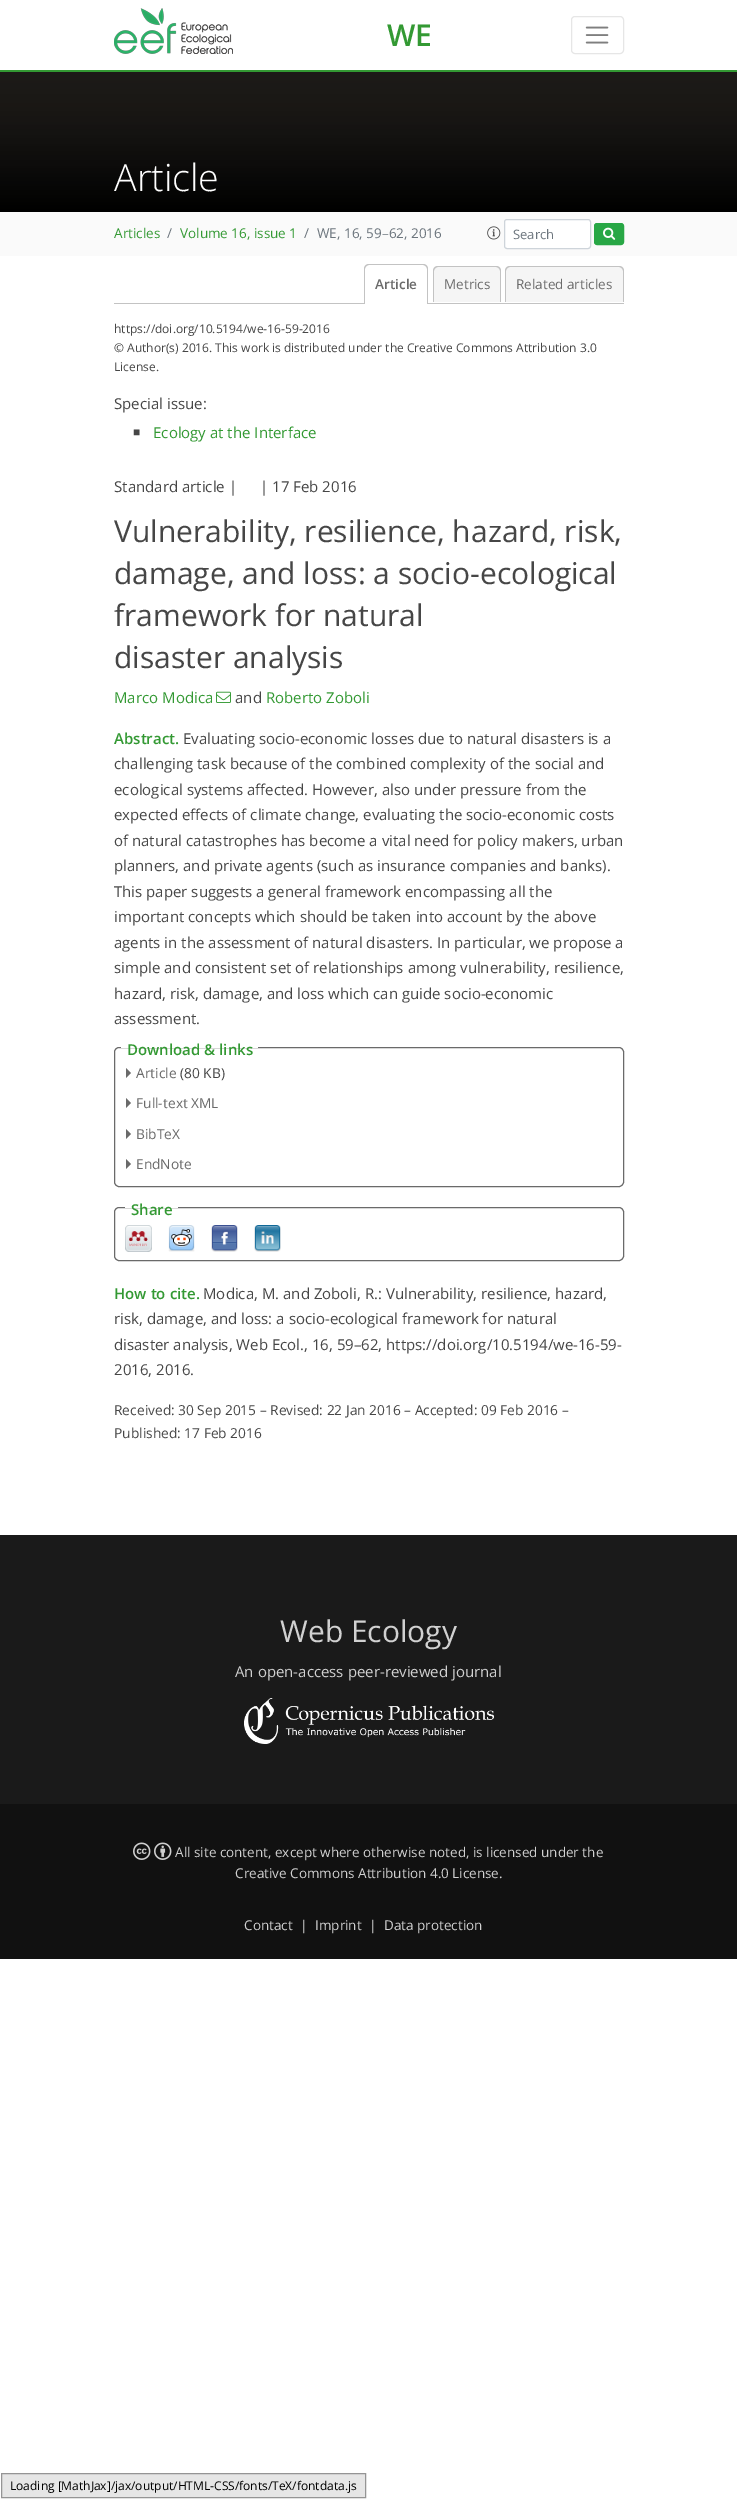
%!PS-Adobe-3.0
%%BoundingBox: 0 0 737 2500
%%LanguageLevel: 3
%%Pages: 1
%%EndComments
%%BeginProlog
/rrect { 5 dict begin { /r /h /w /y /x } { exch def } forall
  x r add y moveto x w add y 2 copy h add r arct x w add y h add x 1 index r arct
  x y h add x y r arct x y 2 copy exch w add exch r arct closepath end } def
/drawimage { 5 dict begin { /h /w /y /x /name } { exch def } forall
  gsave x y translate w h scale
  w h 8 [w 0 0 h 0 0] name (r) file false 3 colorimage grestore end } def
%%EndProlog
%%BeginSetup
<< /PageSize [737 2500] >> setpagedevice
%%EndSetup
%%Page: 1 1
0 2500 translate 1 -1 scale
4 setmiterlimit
1 setgray
0 0 737 2500 rectfill
(images/1.raw) 114 8 119 46 drawimage
0.902 setgray
571.5 16.5 52 37 3.5 rrect stroke
(images/2.raw) 585 26 24 18 drawimage
0.2 0.6 0.2 setrgbcolor
0 70 737 2 rectfill
gsave newpath 0 72 moveto 737 72 lineto 737 212 lineto 0 212 lineto closepath clip newpath
<< /ShadingType 2 /ColorSpace /DeviceRGB /Coords [369 212 369 72] /Extend [true true] /Function << /FunctionType 3 /Domain [0 1] /Functions [<< /FunctionType 2 /Domain [0 1] /C0 [0 0 0] /C1 [0.027 0.027 0.024] /N 1 >> << /FunctionType 2 /Domain [0 1] /C0 [0.027 0.027 0.024] /C1 [0.051 0.047 0.043] /N 1 >> << /FunctionType 2 /Domain [0 1] /C0 [0.051 0.047 0.043] /C1 [0.067 0.063 0.055] /N 1 >> << /FunctionType 2 /Domain [0 1] /C0 [0.067 0.063 0.055] /C1 [0.078 0.075 0.067] /N 1 >> << /FunctionType 2 /Domain [0 1] /C0 [0.078 0.075 0.067] /C1 [0.09 0.082 0.075] /N 1 >> << /FunctionType 2 /Domain [0 1] /C0 [0.09 0.082 0.075] /C1 [0.098 0.09 0.078] /N 1 >> << /FunctionType 2 /Domain [0 1] /C0 [0.098 0.09 0.078] /C1 [0.102 0.094 0.082] /N 1 >> << /FunctionType 2 /Domain [0 1] /C0 [0.102 0.094 0.082] /C1 [0.106 0.098 0.086] /N 1 >> << /FunctionType 2 /Domain [0 1] /C0 [0.106 0.098 0.086] /C1 [0.106 0.098 0.09] /N 1 >> << /FunctionType 2 /Domain [0 1] /C0 [0.106 0.098 0.09] /C1 [0.11 0.102 0.09] /N 1 >> << /FunctionType 2 /Domain [0 1] /C0 [0.11 0.102 0.09] /C1 [0.11 0.102 0.09] /N 1 >>] /Bounds [0.19 0.34 0.47 0.56 0.65 0.73 0.8 0.86 0.91 0.95] /Encode [0 1 0 1 0 1 0 1 0 1 0 1 0 1 0 1 0 1 0 1 0 1] >> >> shfill grestore
0.98 setgray
0 212 737 44 rectfill
(images/3.raw) 487 226 14 14 drawimage
1 setgray
504.5 219.5 86 29 2.5 rrect gsave fill grestore
0.808 0.831 0.855 setrgbcolor
stroke
0.157 0.655 0.271 setrgbcolor
594.5 223.5 29 21 2.5 rrect gsave fill grestore
stroke
(images/4.raw) 603 227 13 13 drawimage
0.765 setgray
114 303 510 1 rectfill
1 setgray
newpath 369 264 moveto 423 264 lineto 426 264 428 266 428 269 curveto 428 304 lineto 364 304 lineto 364 269 lineto 364 266 366 264 369 264 curveto closepath fill
0.765 setgray
newpath 369 264 moveto 423 264 lineto 426 264 428 266 428 269 curveto 428 304 lineto 364 304 lineto 364 269 lineto 364 266 366 264 369 264 curveto closepath 369 265 moveto 423 265 lineto 425 265 427 267 427 269 curveto 427 304 lineto 365 304 lineto 365 269 lineto 365 267 367 265 369 265 curveto closepath eofill
0.961 setgray
newpath 438 266 moveto 496 266 lineto 499 266 501 268 501 271 curveto 501 302 lineto 433 302 lineto 433 271 lineto 433 268 435 266 438 266 curveto closepath fill
0.765 setgray
newpath 438 266 moveto 496 266 lineto 499 266 501 268 501 271 curveto 501 302 lineto 433 302 lineto 433 271 lineto 433 268 435 266 438 266 curveto closepath 438 267 moveto 496 267 lineto 498 267 500 269 500 271 curveto 500 302 lineto 434 302 lineto 434 271 lineto 434 269 436 267 438 267 curveto closepath eofill
0.961 setgray
newpath 510 266 moveto 619 266 lineto 622 266 624 268 624 271 curveto 624 302 lineto 505 302 lineto 505 271 lineto 505 268 507 266 510 266 curveto closepath fill
0.765 setgray
newpath 510 266 moveto 619 266 lineto 622 266 624 268 624 271 curveto 624 302 lineto 505 302 lineto 505 271 lineto 505 268 507 266 510 266 curveto closepath 510 267 moveto 619 267 lineto 621 267 623 269 623 271 curveto 623 302 lineto 506 302 lineto 506 271 lineto 506 269 508 267 510 267 curveto closepath eofill
(images/5.raw) 216 691 15 12 drawimage
0.416 setgray
114.5 1047.5 509 139 4.5 rrect stroke
1 setgray
121 1047 137 1 rectfill
0.416 setgray
newpath 126 1078 moveto 126 1068 lineto 131 1073 lineto closepath 126 1108 moveto 126 1098 lineto 131 1103 lineto closepath fill
newpath 126 1139 moveto 126 1129 lineto 131 1134 lineto closepath 126 1169 moveto 126 1159 lineto 131 1164 lineto closepath fill
114.5 1207.5 509 53 4.5 rrect stroke
1 setgray
125 1207 53 1 rectfill
(images/6.raw) 125 1225 27 27 drawimage
(images/7.raw) 168 1225 27 27 drawimage
(images/8.raw) 211 1225 27 27 drawimage
(images/9.raw) 254 1225 27 27 drawimage
0.102 setgray
0 1535 737 269 rectfill
(images/10.raw) 244 1698 250 46 drawimage
0.067 setgray
0 1804 737 155 rectfill
(images/11.raw) 133 1842 18 18 drawimage
(images/12.raw) 154 1842 18 18 drawimage
0.902 setgray
newpath 1.5 2473.5 moveto 365.5 2473.5 lineto 365.5 2497.5 lineto 1.5 2497.5 lineto closepath gsave fill grestore
0.584 setgray
stroke
/OpenSans-SemiBold [30 0 0 -30 0 0] selectfont
0.2 0.6 0.2 setrgbcolor
387 46 moveto (WE) show
/OpenSans-Light [37.5 0 0 -37.5 0 0] selectfont
1 setgray
114 191 moveto (Article) show
/OpenSans-Regular [13.5 0 0 -13.5 0 0] selectfont
0.2 0.6 0.2 setrgbcolor
114 238 moveto (Articles) show
0.424 0.459 0.49 setrgbcolor
167 238 moveto (/) show
0.2 0.6 0.2 setrgbcolor
180 238 moveto (Volume 16, issue 1) show
0.424 0.459 0.49 setrgbcolor
304 238 moveto (/) show
317 238 moveto (WE, 16, 59–62, 2016) show
/OpenSans-Regular [13 0 0 -13 0 0] selectfont
513 239 moveto (Search) show
/OpenSans-SemiBold [13.5 0 0 -13.5 0 0] selectfont
0.416 setgray
375 289 moveto (Article) show
/OpenSans-Regular [13.5 0 0 -13.5 0 0] selectfont
444 289 moveto (Metrics) show
516 289 moveto (Related articles) show
/OpenSans-Regular [12 0 0 -12 0 0] selectfont
0.275 setgray
114 333 moveto (https://doi.org/10.5194/we-16-59-2016) show
114 352 moveto (© Author\(s\) 2016. This work is distributed under the Creative Commons Attribution 3.0) show
114 371 moveto (License.) show
/OpenSans-Regular [15 0 0 -15 0 0] selectfont
114 409 moveto (Special issue:) show
/LiberationSans-Regular [12 0 0 -12 0 0] selectfont
133 436 moveto (■) show
/OpenSans-Regular [15 0 0 -15 0 0] selectfont
0.2 0.6 0.2 setrgbcolor
153 438 moveto (Ecology at the Interface) show
0.275 setgray
114 492 moveto (Standard article |) show
260 492 moveto (| 17 Feb 2016) show
/OpenSans-Regular [30 0 0 -30 0 0] selectfont
114 542 moveto (Vulnerability, resilience, hazard, risk,) show
114 584 moveto (damage, and loss: a socio-ecological) show
114 626 moveto (framework for natural) show
114 668 moveto (disaster analysis) show
/OpenSans-Regular [15 0 0 -15 0 0] selectfont
0.2 0.6 0.2 setrgbcolor
114 703 moveto (Marco Modica) show
0.275 setgray
235 703 moveto (and) show
0.2 0.6 0.2 setrgbcolor
266 703 moveto (Roberto Zoboli) show
/OpenSans-SemiBold [15 0 0 -15 0 0] selectfont
114 744 moveto (Abstract.) show
/OpenSans-Regular [15 0 0 -15 0 0] selectfont
0.275 setgray
183 744 moveto (Evaluating socio-economic losses due to natural disasters is a) show
114 769 moveto (challenging task because of the combined complexity of the social and) show
114 795 moveto (ecological systems affected. However, also under pressure from the) show
114 820 moveto (expected effects of climate change, evaluating the socio-economic costs) show
114 846 moveto (of natural catastrophes has become a vital need for policy makers, urban) show
114 871 moveto (planners, and private agents \(such as insurance companies and banks\).) show
114 897 moveto (This paper suggests a general framework encompassing all the) show
114 922 moveto (important concepts which should be taken into account by the above) show
114 948 moveto (agents in the assessment of natural disasters. In particular, we propose a) show
114 973 moveto (simple and consistent set of relationships among vulnerability, resilience,) show
114 999 moveto (hazard, risk, damage, and loss which can guide socio-economic) show
114 1024 moveto (assessment.) show
/OpenSans-SemiBold [15 0 0 -15 0 0] selectfont
0.2 0.6 0.2 setrgbcolor
127 1055 moveto (Download & links) show
/OpenSans-Regular [13.75 0 0 -13.75 0 0] selectfont
0.416 setgray
136 1078 moveto (Article) show
0.275 setgray
180 1078 moveto (\(80 KB\)) show
0.416 setgray
136 1108 moveto (Full-text XML) show
136 1139 moveto (BibTeX) show
136 1169 moveto (EndNote) show
/OpenSans-SemiBold [15 0 0 -15 0 0] selectfont
0.2 0.6 0.2 setrgbcolor
131 1215 moveto (Share) show
114 1299 moveto (How to cite.) show
/OpenSans-Regular [15 0 0 -15 0 0] selectfont
0.275 setgray
203 1299 moveto (Modica, M. and Zoboli, R.: Vulnerability, resilience, hazard,) show
114 1324 moveto (risk, damage, and loss: a socio-ecological framework for natural) show
114 1350 moveto (disaster analysis, Web Ecol., 16, 59–62, https://doi.org/10.5194/we-16-59-) show
114 1375 moveto (2016, 2016.) show
/OpenSans-Regular [13.75 0 0 -13.75 0 0] selectfont
114 1415 moveto (Received: 30 Sep 2015 – Revised: 22 Jan 2016 – Accepted: 09 Feb 2016 –) show
114 1438 moveto (Published: 17 Feb 2016) show
/OpenSans-Regular [30 0 0 -30 0 0] selectfont
0.82 setgray
280 1642 moveto (Web Ecology) show
/OpenSans-Regular [15 0 0 -15 0 0] selectfont
235 1677 moveto (An open-access peer-reviewed journal) show
/OpenSans-Regular [13.5 0 0 -13.5 0 0] selectfont
175 1857 moveto (All site content, except where otherwise noted, is licensed under the) show
235 1878 moveto (Creative Commons Attribution 4.0 License.) show
244 1930 moveto (Contact) show
300 1930 moveto (|) show
315 1930 moveto (Imprint) show
369 1930 moveto (|) show
384 1930 moveto (Data protection) show
/OpenSans-Regular [12 0 0 -12 0 0] selectfont
0 setgray
10 2490 moveto (Loading [MathJax]/jax/output/HTML-CSS/fonts/TeX/fontdata.js) show
showpage
%%EOF
